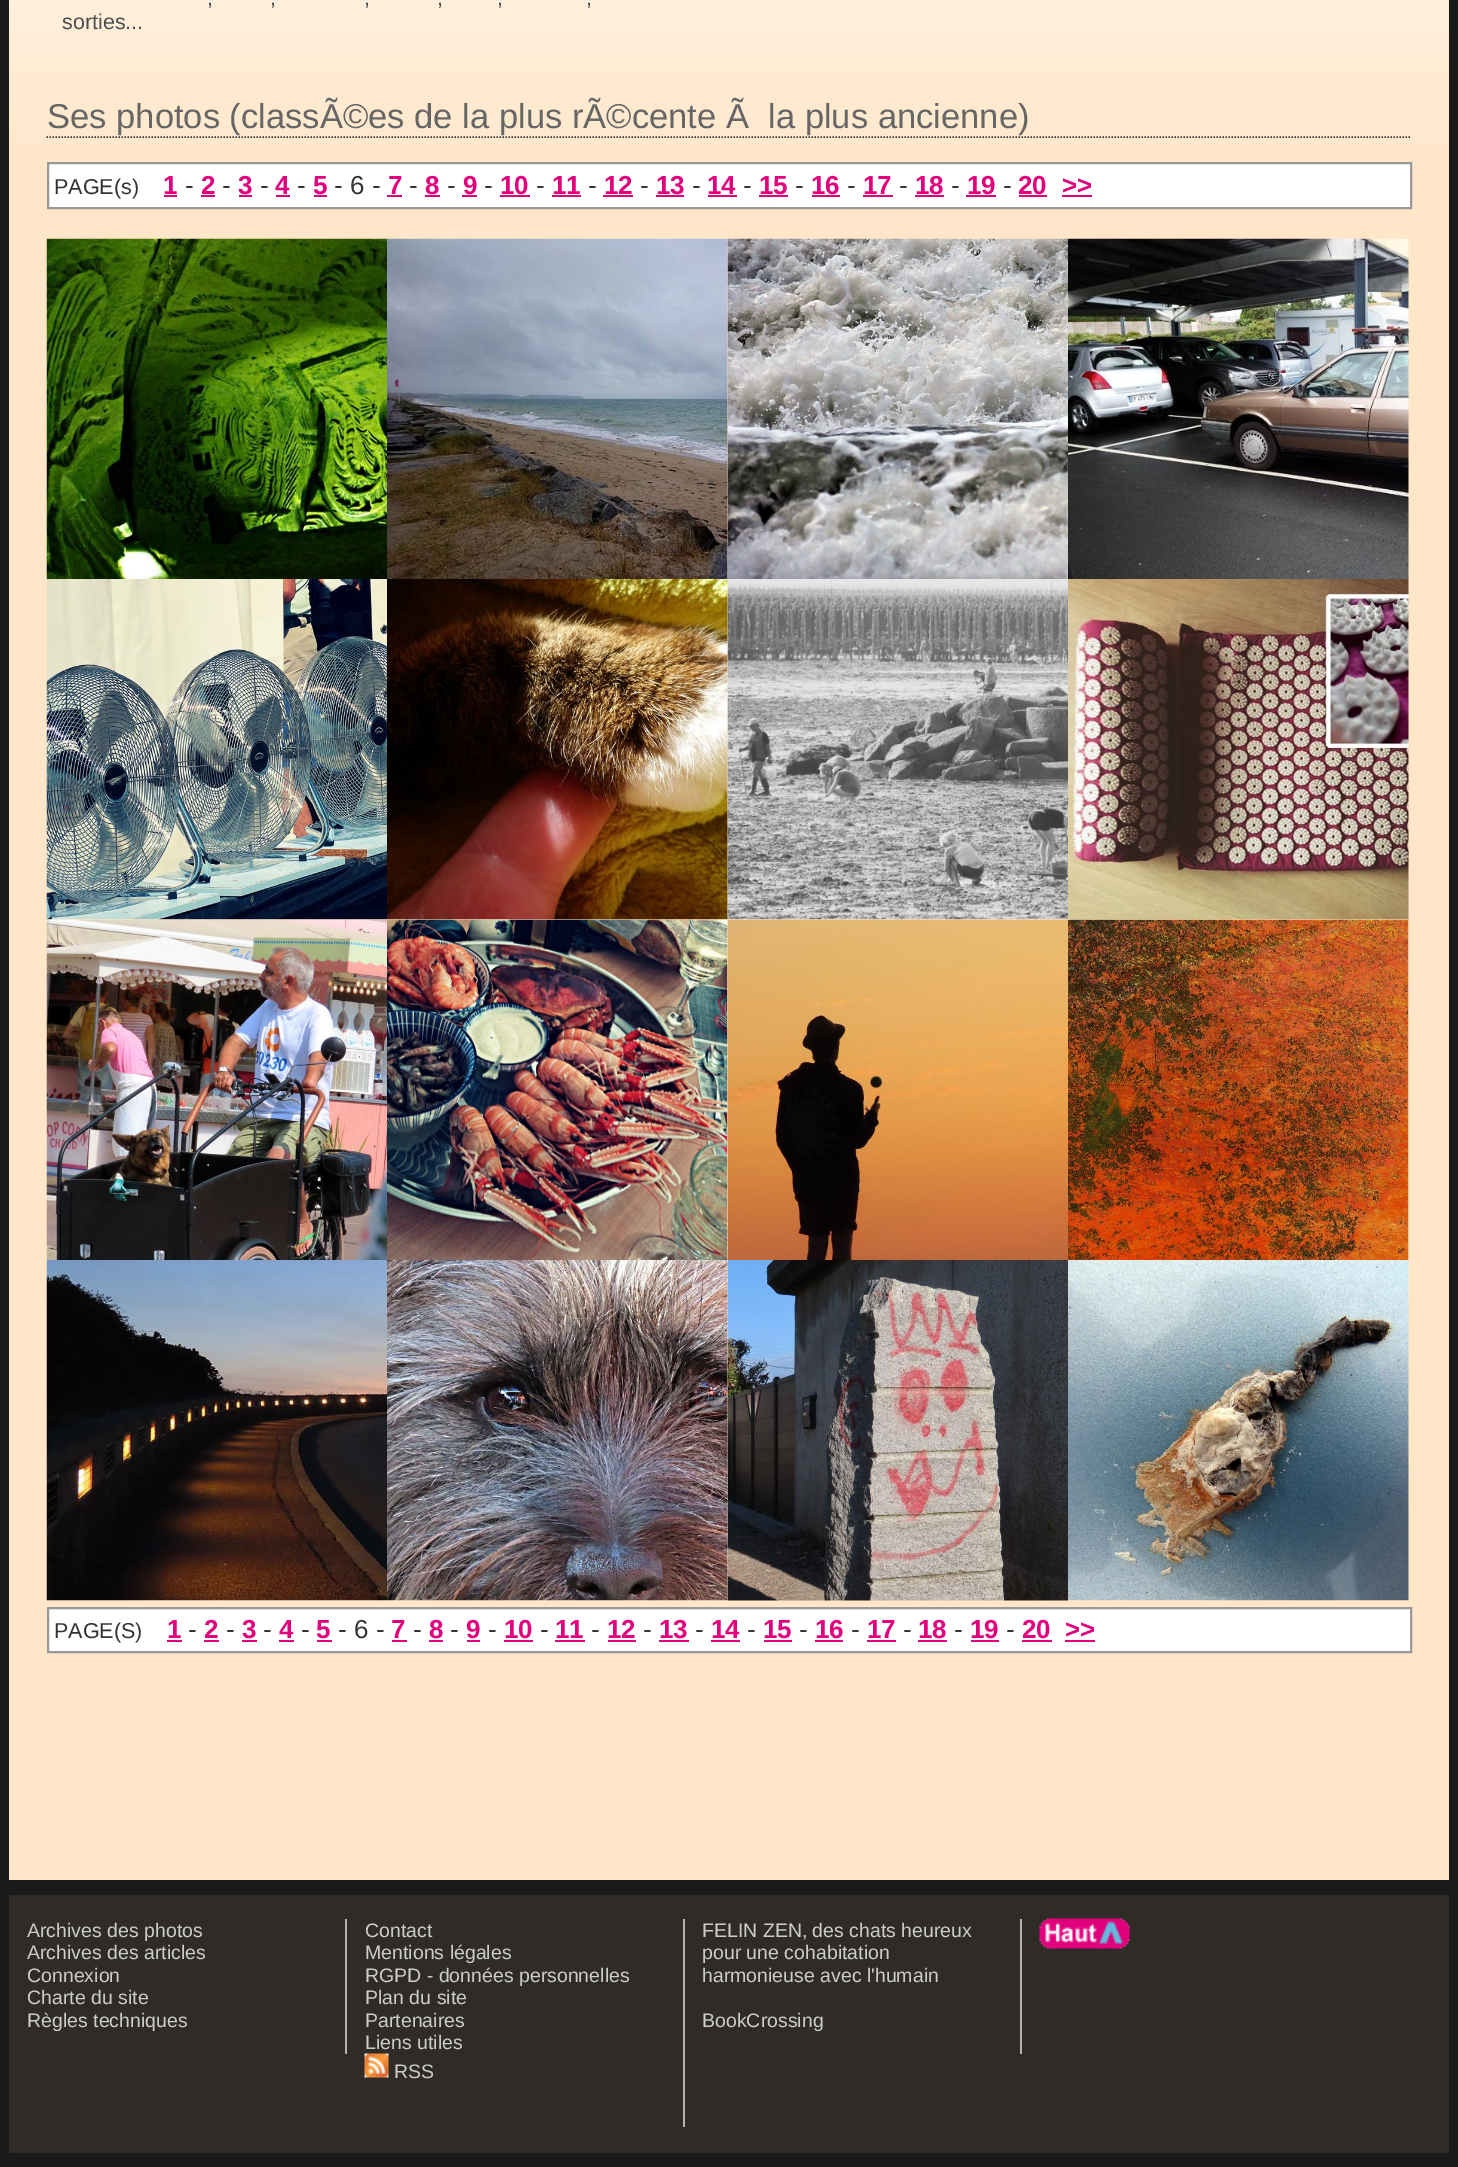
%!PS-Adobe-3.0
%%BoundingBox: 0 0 1458 2167
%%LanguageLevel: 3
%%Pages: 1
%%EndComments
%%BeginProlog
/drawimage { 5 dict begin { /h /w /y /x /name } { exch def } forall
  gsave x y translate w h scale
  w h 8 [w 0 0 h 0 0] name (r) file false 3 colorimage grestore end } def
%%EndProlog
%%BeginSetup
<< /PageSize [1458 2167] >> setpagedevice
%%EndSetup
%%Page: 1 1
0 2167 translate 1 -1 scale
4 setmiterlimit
0.102 setgray
0 0 1458 2167 rectfill
1 0.902 0.784 setrgbcolor
9 147 1440 1733 rectfill
(images/1.raw) 9 0 1440 147 drawimage
0.2 setgray
1.5 setlinewidth
[1.5 1.5] 0 setdash
newpath 46.5 137 moveto 1411.5 137 lineto stroke
1 setgray
newpath 48 163 moveto 1411 163 lineto 1411 208 lineto 48 208 lineto closepath gsave fill grestore
0.6 setgray
2 setlinewidth
[] 0 setdash
stroke
0.89 0 0.486 setrgbcolor
164 195 13 2 rectfill
201 195 14 2 rectfill
239 195 13 2 rectfill
276 195 14 2 rectfill
314 195 13 2 rectfill
387 195 15 2 rectfill
425 195 15 2 rectfill
462 195 15 2 rectfill
500 195 30 2 rectfill
552 195 29 2 rectfill
603 195 30 2 rectfill
656 195 28 2 rectfill
708 195 29 2 rectfill
759 195 29 2 rectfill
812 195 28 2 rectfill
863 195 30 2 rectfill
915 195 29 2 rectfill
966 195 30 2 rectfill
1019 195 28 2 rectfill
1062 195 30 2 rectfill
(images/2.raw) 46 238 341 341 drawimage
(images/3.raw) 387 238 341 341 drawimage
(images/4.raw) 727 238 341 341 drawimage
(images/5.raw) 1068 238 341 341 drawimage
(images/6.raw) 46 579 341 341 drawimage
(images/7.raw) 387 579 341 341 drawimage
(images/8.raw) 727 579 341 341 drawimage
(images/9.raw) 1068 579 341 341 drawimage
(images/10.raw) 46 919 341 341 drawimage
(images/11.raw) 387 919 341 341 drawimage
(images/12.raw) 727 919 341 341 drawimage
(images/13.raw) 1068 919 341 341 drawimage
(images/14.raw) 46 1260 341 341 drawimage
(images/15.raw) 387 1260 341 341 drawimage
(images/16.raw) 727 1260 341 341 drawimage
(images/17.raw) 1068 1260 341 341 drawimage
1 setgray
newpath 48 1608 moveto 1411 1608 lineto 1411 1652 lineto 48 1652 lineto closepath gsave fill grestore
0.6 setgray
stroke
0.89 0 0.486 setrgbcolor
167 1640 15 2 rectfill
204 1640 15 2 rectfill
242 1640 15 2 rectfill
279 1640 15 2 rectfill
317 1640 15 2 rectfill
392 1640 15 2 rectfill
429 1640 14 2 rectfill
467 1640 13 2 rectfill
504 1640 29 2 rectfill
555 1640 30 2 rectfill
608 1640 28 2 rectfill
659 1640 30 2 rectfill
711 1640 29 2 rectfill
764 1640 28 2 rectfill
815 1640 28 2 rectfill
867 1640 29 2 rectfill
918 1640 29 2 rectfill
971 1640 28 2 rectfill
1022 1640 30 2 rectfill
1065 1640 30 2 rectfill
0.184 0.173 0.153 setrgbcolor
9 1895 1440 258 rectfill
0.702 setgray
345 1919 2 135 rectfill
683 1919 2 208 rectfill
(images/18.raw) 364 2053 25 25 drawimage
1020 1919 2 135 rectfill
(images/19.raw) 1039 1918 91 31 drawimage
/LiberationSans-Regular [21.5 0 0 -21.5 0 0] selectfont
0.302 setgray
207 5 moveto (,) show
270 5 moveto (,) show
364 5 moveto (,) show
437 5 moveto (,) show
497 5 moveto (,) show
586 5 moveto (,) show
62 29 moveto (sorties...) show
/LiberationSans-Regular [34.55 0 0 -34.55 0 0] selectfont
0.4 setgray
47 128 moveto (Ses photos \(classÃ©es de la plus rÃ©cente Ã  la plus ancienne\)) show
/LiberationSans-Regular [21.5 0 0 -21.5 0 0] selectfont
0.2 setgray
54 194 moveto (PAGE\(s\)) show
/LiberationSans-Bold [26 0 0 -26 0 0] selectfont
0.89 0 0.486 setrgbcolor
163 194 moveto (1) show
/LiberationSans-Regular [26 0 0 -26 0 0] selectfont
0.2 setgray
185 194 moveto (-) show
/LiberationSans-Bold [26 0 0 -26 0 0] selectfont
0.89 0 0.486 setrgbcolor
201 194 moveto (2) show
/LiberationSans-Regular [26 0 0 -26 0 0] selectfont
0.2 setgray
222 194 moveto (-) show
/LiberationSans-Bold [26 0 0 -26 0 0] selectfont
0.89 0 0.486 setrgbcolor
238 194 moveto (3) show
/LiberationSans-Regular [26 0 0 -26 0 0] selectfont
0.2 setgray
260 194 moveto (-) show
/LiberationSans-Bold [26 0 0 -26 0 0] selectfont
0.89 0 0.486 setrgbcolor
275 194 moveto (4) show
/LiberationSans-Regular [26 0 0 -26 0 0] selectfont
0.2 setgray
297 194 moveto (-) show
/LiberationSans-Bold [26 0 0 -26 0 0] selectfont
0.89 0 0.486 setrgbcolor
313 194 moveto (5) show
/LiberationSans-Regular [26 0 0 -26 0 0] selectfont
0.2 setgray
334 194 moveto (- 6 -) show
/LiberationSans-Bold [26 0 0 -26 0 0] selectfont
0.89 0 0.486 setrgbcolor
388 194 moveto (7) show
/LiberationSans-Regular [26 0 0 -26 0 0] selectfont
0.2 setgray
409 194 moveto (-) show
/LiberationSans-Bold [26 0 0 -26 0 0] selectfont
0.89 0 0.486 setrgbcolor
425 194 moveto (8) show
/LiberationSans-Regular [26 0 0 -26 0 0] selectfont
0.2 setgray
447 194 moveto (-) show
/LiberationSans-Bold [26 0 0 -26 0 0] selectfont
0.89 0 0.486 setrgbcolor
463 194 moveto (9) show
/LiberationSans-Regular [26 0 0 -26 0 0] selectfont
0.2 setgray
484 194 moveto (-) show
/LiberationSans-Bold [26 0 0 -26 0 0] selectfont
0.89 0 0.486 setrgbcolor
500 194 moveto (10) show
/LiberationSans-Regular [26 0 0 -26 0 0] selectfont
0.2 setgray
536 194 moveto (-) show
/LiberationSans-Bold [26 0 0 -26 0 0] selectfont
0.89 0 0.486 setrgbcolor
552 194 moveto (11) show
/LiberationSans-Regular [26 0 0 -26 0 0] selectfont
0.2 setgray
588 194 moveto (-) show
/LiberationSans-Bold [26 0 0 -26 0 0] selectfont
0.89 0 0.486 setrgbcolor
604 194 moveto (12) show
/LiberationSans-Regular [26 0 0 -26 0 0] selectfont
0.2 setgray
640 194 moveto (-) show
/LiberationSans-Bold [26 0 0 -26 0 0] selectfont
0.89 0 0.486 setrgbcolor
656 194 moveto (13) show
/LiberationSans-Regular [26 0 0 -26 0 0] selectfont
0.2 setgray
692 194 moveto (-) show
/LiberationSans-Bold [26 0 0 -26 0 0] selectfont
0.89 0 0.486 setrgbcolor
707 194 moveto (14) show
/LiberationSans-Regular [26 0 0 -26 0 0] selectfont
0.2 setgray
743 194 moveto (-) show
/LiberationSans-Bold [26 0 0 -26 0 0] selectfont
0.89 0 0.486 setrgbcolor
759 194 moveto (15) show
/LiberationSans-Regular [26 0 0 -26 0 0] selectfont
0.2 setgray
795 194 moveto (-) show
/LiberationSans-Bold [26 0 0 -26 0 0] selectfont
0.89 0 0.486 setrgbcolor
811 194 moveto (16) show
/LiberationSans-Regular [26 0 0 -26 0 0] selectfont
0.2 setgray
847 194 moveto (-) show
/LiberationSans-Bold [26 0 0 -26 0 0] selectfont
0.89 0 0.486 setrgbcolor
863 194 moveto (17) show
/LiberationSans-Regular [26 0 0 -26 0 0] selectfont
0.2 setgray
899 194 moveto (-) show
/LiberationSans-Bold [26 0 0 -26 0 0] selectfont
0.89 0 0.486 setrgbcolor
915 194 moveto (18) show
/LiberationSans-Regular [26 0 0 -26 0 0] selectfont
0.2 setgray
951 194 moveto (-) show
/LiberationSans-Bold [26 0 0 -26 0 0] selectfont
0.89 0 0.486 setrgbcolor
967 194 moveto (19) show
/LiberationSans-Regular [26 0 0 -26 0 0] selectfont
0.2 setgray
1003 194 moveto (-) show
/LiberationSans-Bold [26 0 0 -26 0 0] selectfont
0.89 0 0.486 setrgbcolor
1018 194 moveto (20) show
1062 194 moveto (>>) show
/LiberationSans-Regular [21.5 0 0 -21.5 0 0] selectfont
0.2 setgray
54 1638 moveto (PAGE\(S\)) show
/LiberationSans-Bold [26 0 0 -26 0 0] selectfont
0.89 0 0.486 setrgbcolor
167 1638 moveto (1) show
/LiberationSans-Regular [26 0 0 -26 0 0] selectfont
0.2 setgray
188 1638 moveto (-) show
/LiberationSans-Bold [26 0 0 -26 0 0] selectfont
0.89 0 0.486 setrgbcolor
204 1638 moveto (2) show
/LiberationSans-Regular [26 0 0 -26 0 0] selectfont
0.2 setgray
226 1638 moveto (-) show
/LiberationSans-Bold [26 0 0 -26 0 0] selectfont
0.89 0 0.486 setrgbcolor
242 1638 moveto (3) show
/LiberationSans-Regular [26 0 0 -26 0 0] selectfont
0.2 setgray
263 1638 moveto (-) show
/LiberationSans-Bold [26 0 0 -26 0 0] selectfont
0.89 0 0.486 setrgbcolor
279 1638 moveto (4) show
/LiberationSans-Regular [26 0 0 -26 0 0] selectfont
0.2 setgray
301 1638 moveto (-) show
/LiberationSans-Bold [26 0 0 -26 0 0] selectfont
0.89 0 0.486 setrgbcolor
316 1638 moveto (5) show
/LiberationSans-Regular [26 0 0 -26 0 0] selectfont
0.2 setgray
338 1638 moveto (- 6 -) show
/LiberationSans-Bold [26 0 0 -26 0 0] selectfont
0.89 0 0.486 setrgbcolor
391 1638 moveto (7) show
/LiberationSans-Regular [26 0 0 -26 0 0] selectfont
0.2 setgray
413 1638 moveto (-) show
/LiberationSans-Bold [26 0 0 -26 0 0] selectfont
0.89 0 0.486 setrgbcolor
429 1638 moveto (8) show
/LiberationSans-Regular [26 0 0 -26 0 0] selectfont
0.2 setgray
450 1638 moveto (-) show
/LiberationSans-Bold [26 0 0 -26 0 0] selectfont
0.89 0 0.486 setrgbcolor
466 1638 moveto (9) show
/LiberationSans-Regular [26 0 0 -26 0 0] selectfont
0.2 setgray
488 1638 moveto (-) show
/LiberationSans-Bold [26 0 0 -26 0 0] selectfont
0.89 0 0.486 setrgbcolor
504 1638 moveto (10) show
/LiberationSans-Regular [26 0 0 -26 0 0] selectfont
0.2 setgray
540 1638 moveto (-) show
/LiberationSans-Bold [26 0 0 -26 0 0] selectfont
0.89 0 0.486 setrgbcolor
555 1638 moveto (11) show
/LiberationSans-Regular [26 0 0 -26 0 0] selectfont
0.2 setgray
591 1638 moveto (-) show
/LiberationSans-Bold [26 0 0 -26 0 0] selectfont
0.89 0 0.486 setrgbcolor
607 1638 moveto (12) show
/LiberationSans-Regular [26 0 0 -26 0 0] selectfont
0.2 setgray
643 1638 moveto (-) show
/LiberationSans-Bold [26 0 0 -26 0 0] selectfont
0.89 0 0.486 setrgbcolor
659 1638 moveto (13) show
/LiberationSans-Regular [26 0 0 -26 0 0] selectfont
0.2 setgray
695 1638 moveto (-) show
/LiberationSans-Bold [26 0 0 -26 0 0] selectfont
0.89 0 0.486 setrgbcolor
711 1638 moveto (14) show
/LiberationSans-Regular [26 0 0 -26 0 0] selectfont
0.2 setgray
747 1638 moveto (-) show
/LiberationSans-Bold [26 0 0 -26 0 0] selectfont
0.89 0 0.486 setrgbcolor
763 1638 moveto (15) show
/LiberationSans-Regular [26 0 0 -26 0 0] selectfont
0.2 setgray
799 1638 moveto (-) show
/LiberationSans-Bold [26 0 0 -26 0 0] selectfont
0.89 0 0.486 setrgbcolor
815 1638 moveto (16) show
/LiberationSans-Regular [26 0 0 -26 0 0] selectfont
0.2 setgray
851 1638 moveto (-) show
/LiberationSans-Bold [26 0 0 -26 0 0] selectfont
0.89 0 0.486 setrgbcolor
867 1638 moveto (17) show
/LiberationSans-Regular [26 0 0 -26 0 0] selectfont
0.2 setgray
903 1638 moveto (-) show
/LiberationSans-Bold [26 0 0 -26 0 0] selectfont
0.89 0 0.486 setrgbcolor
918 1638 moveto (18) show
/LiberationSans-Regular [26 0 0 -26 0 0] selectfont
0.2 setgray
954 1638 moveto (-) show
/LiberationSans-Bold [26 0 0 -26 0 0] selectfont
0.89 0 0.486 setrgbcolor
970 1638 moveto (19) show
/LiberationSans-Regular [26 0 0 -26 0 0] selectfont
0.2 setgray
1006 1638 moveto (-) show
/LiberationSans-Bold [26 0 0 -26 0 0] selectfont
0.89 0 0.486 setrgbcolor
1022 1638 moveto (20) show
1065 1638 moveto (>>) show
/LiberationSans-Regular [19.5 0 0 -19.5 0 0] selectfont
0.8 setgray
27 1937 moveto (Archives des photos) show
27 1959 moveto (Archives des articles) show
27 1982 moveto (Connexion) show
27 2004 moveto (Charte du site) show
27 2027 moveto (Règles techniques) show
365 1937 moveto (Contact) show
365 1959 moveto (Mentions légales) show
365 1982 moveto (RGPD - données personnelles) show
365 2004 moveto (Plan du site) show
365 2027 moveto (Partenaires) show
365 2049 moveto (Liens utiles) show
394 2078 moveto (RSS) show
702 1937 moveto (FELIN ZEN, des chats heureux) show
702 1959 moveto (pour une cohabitation) show
702 1982 moveto (harmonieuse avec l'humain) show
702 2027 moveto (BookCrossing) show
showpage
%%EOF
